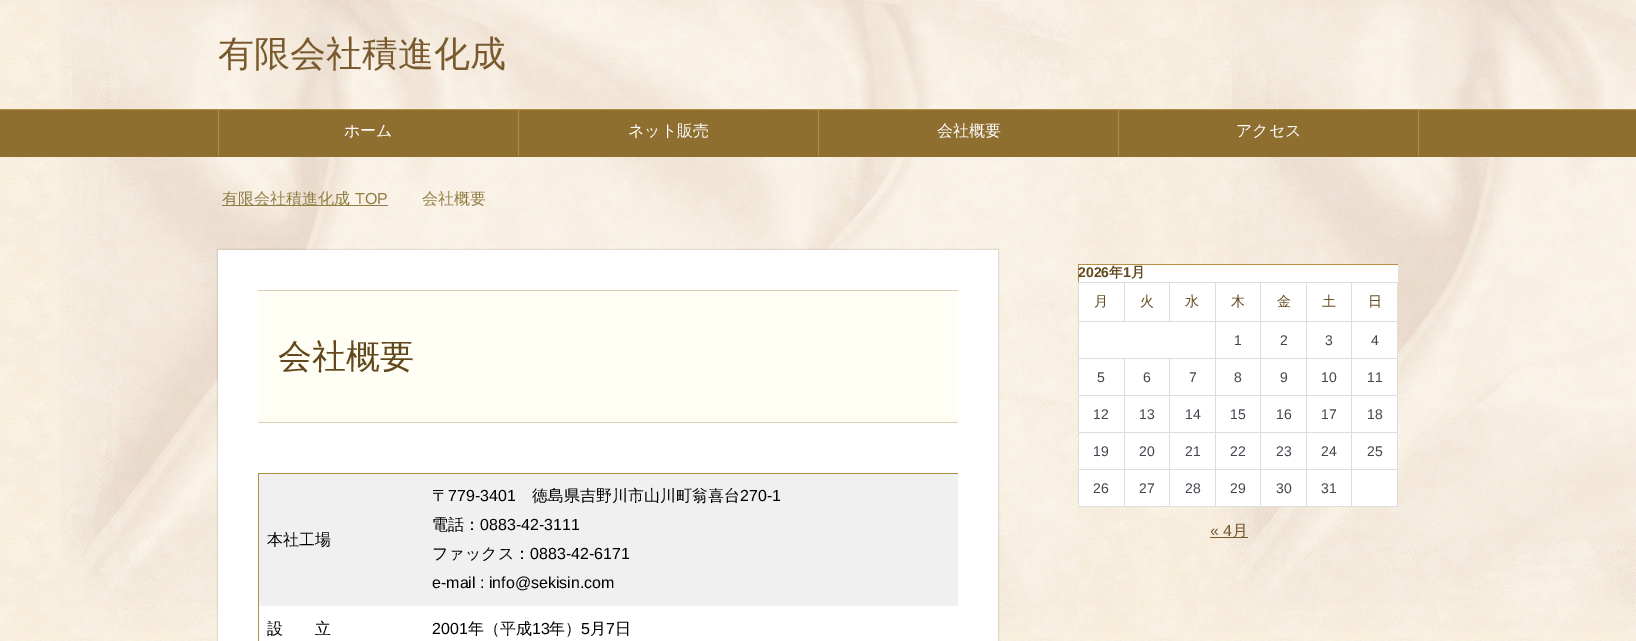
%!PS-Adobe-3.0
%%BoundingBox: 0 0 1636 641
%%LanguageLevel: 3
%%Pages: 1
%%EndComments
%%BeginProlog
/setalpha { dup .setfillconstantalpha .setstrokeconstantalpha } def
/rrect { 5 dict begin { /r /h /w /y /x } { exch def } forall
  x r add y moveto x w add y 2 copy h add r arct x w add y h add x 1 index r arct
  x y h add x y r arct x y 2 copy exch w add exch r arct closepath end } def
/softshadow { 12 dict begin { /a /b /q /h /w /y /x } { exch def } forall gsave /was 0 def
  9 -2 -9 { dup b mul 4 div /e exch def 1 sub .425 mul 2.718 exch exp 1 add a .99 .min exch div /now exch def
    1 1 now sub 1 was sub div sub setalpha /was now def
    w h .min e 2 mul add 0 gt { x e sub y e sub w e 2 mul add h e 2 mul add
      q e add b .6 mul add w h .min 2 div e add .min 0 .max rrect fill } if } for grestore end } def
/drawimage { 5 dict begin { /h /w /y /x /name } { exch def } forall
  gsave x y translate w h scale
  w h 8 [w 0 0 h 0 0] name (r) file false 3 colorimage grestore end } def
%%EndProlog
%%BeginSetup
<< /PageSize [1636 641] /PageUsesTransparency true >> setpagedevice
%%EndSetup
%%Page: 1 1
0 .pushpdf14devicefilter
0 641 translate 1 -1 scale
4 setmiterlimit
1 setgray
0 0 1636 641 rectfill
(images/1.raw) 0 0 1636 641 drawimage
(images/2.raw) 60 0 1576 631 drawimage
0.561 0.435 0.188 setrgbcolor
0 110 1636 47 rectfill
0.706 0.561 0.263 setrgbcolor
0 109 1636 1 rectfill
0.678 0.561 0.278 setrgbcolor
218 110 1 46 rectfill
518 110 1 46 rectfill
818 110 1 46 rectfill
1118 110 1 46 rectfill
1418 110 1 46 rectfill
0.565 0.49 0.263 setrgbcolor
222 205 166 1 rectfill
0 setgray
217 249 782 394 0 0.5 0.1 softshadow
1 setgray
218 250 780 391 rectfill
1 0.996 0.961 setrgbcolor
258 291 700 131 rectfill
0.851 0.804 0.71 setrgbcolor
258 290 700 1 rectfill
258 422 700 1 rectfill
0.706 0.561 0.263 setrgbcolor
258 473 700 1 rectfill
258 473 1 168 rectfill
0.941 setgray
259 474 699 132 rectfill
1 setgray
1079 265 319 241 rectfill
0.706 0.561 0.263 setrgbcolor
1078 264 320 1 rectfill
1078 264 1 18 rectfill
0.867 setgray
1351 282 47 1 rectfill
1351 321 47 1 rectfill
1351 358 47 1 rectfill
1351 395 47 1 rectfill
1351 432 47 1 rectfill
1351 469 47 1 rectfill
1397 469 1 38 rectfill
1351 506 47 1 rectfill
1351 469 1 38 rectfill
1306 469 46 1 rectfill
1351 432 1 38 rectfill
1306 432 46 1 rectfill
1351 395 1 38 rectfill
1306 395 46 1 rectfill
1351 358 1 38 rectfill
1306 358 46 1 rectfill
1351 321 1 38 rectfill
1306 321 46 1 rectfill
1351 282 1 40 rectfill
1306 282 46 1 rectfill
1306 506 46 1 rectfill
1306 469 1 38 rectfill
1260 469 47 1 rectfill
1306 432 1 38 rectfill
1260 432 47 1 rectfill
1306 395 1 38 rectfill
1260 395 47 1 rectfill
1306 358 1 38 rectfill
1260 358 47 1 rectfill
1306 321 1 38 rectfill
1260 321 47 1 rectfill
1306 282 1 40 rectfill
1260 282 47 1 rectfill
1260 506 47 1 rectfill
1260 469 1 38 rectfill
1215 469 46 1 rectfill
1260 432 1 38 rectfill
1215 432 46 1 rectfill
1260 395 1 38 rectfill
1215 395 46 1 rectfill
1260 358 1 38 rectfill
1215 358 46 1 rectfill
1260 321 1 38 rectfill
1215 321 46 1 rectfill
1260 282 1 40 rectfill
1215 282 46 1 rectfill
1215 506 46 1 rectfill
1215 469 1 38 rectfill
1169 469 47 1 rectfill
1215 432 1 38 rectfill
1169 432 47 1 rectfill
1215 395 1 38 rectfill
1169 395 47 1 rectfill
1215 358 1 38 rectfill
1169 358 47 1 rectfill
1215 321 1 38 rectfill
1078 321 138 1 rectfill
1215 282 1 40 rectfill
1169 282 47 1 rectfill
1169 282 1 40 rectfill
1124 282 46 1 rectfill
1124 282 1 40 rectfill
1078 282 47 1 rectfill
1169 506 47 1 rectfill
1169 469 1 38 rectfill
1124 469 46 1 rectfill
1169 432 1 38 rectfill
1124 432 46 1 rectfill
1169 395 1 38 rectfill
1124 395 46 1 rectfill
1169 358 1 38 rectfill
1124 358 46 1 rectfill
1124 506 46 1 rectfill
1124 469 1 38 rectfill
1078 469 47 1 rectfill
1124 432 1 38 rectfill
1078 432 47 1 rectfill
1124 395 1 38 rectfill
1078 395 47 1 rectfill
1124 358 1 38 rectfill
1078 358 47 1 rectfill
1078 506 47 1 rectfill
1078 469 1 38 rectfill
1078 432 1 38 rectfill
1078 395 1 38 rectfill
1078 358 1 38 rectfill
1078 321 1 38 rectfill
1078 282 1 40 rectfill
1397 432 1 38 rectfill
1397 395 1 38 rectfill
1397 358 1 38 rectfill
1397 321 1 38 rectfill
1397 282 1 40 rectfill
0.475 0.353 0.18 setrgbcolor
1210 537 38 1 rectfill
/WenQuanYiZenHei-Medium [36 0 0 -36 0 0] selectfont
218 66 moveto (有限会社積進化成) show
/WenQuanYiZenHei-Medium [16 0 0 -16 0 0] selectfont
1 setgray
344 136 moveto (ホーム) show
628 136 moveto (ネット販売) show
937 136 moveto (会社概要) show
1236 136 moveto (アクセス) show
0.565 0.49 0.263 setrgbcolor
222 204 moveto (有限会社積進化成) show
/LiberationSans-Regular [16 0 0 -16 0 0] selectfont
355 204 moveto (TOP) show
/WenQuanYiZenHei-Medium [16 0 0 -16 0 0] selectfont
422 204 moveto (会社概要) show
/WenQuanYiZenHei-Medium [34 0 0 -34 0 0] selectfont
0.384 0.282 0.11 setrgbcolor
278 368 moveto (会社概要) show
/WenQuanYiZenHei-Medium [16 0 0 -16 0 0] selectfont
0 setgray
267 545 moveto (本社工場) show
432 501 moveto (〒) show
/LiberationSans-Regular [16 0 0 -16 0 0] selectfont
448 501 moveto (779-3401) show
/WenQuanYiZenHei-Medium [16 0 0 -16 0 0] selectfont
532 501 moveto (徳島県吉野川市山川町翁喜台) show
/LiberationSans-Regular [16 0 0 -16 0 0] selectfont
740 501 moveto (270-1) show
/WenQuanYiZenHei-Medium [16 0 0 -16 0 0] selectfont
432 530 moveto (電話：) show
/LiberationSans-Regular [16 0 0 -16 0 0] selectfont
480 530 moveto (0883-42-3111) show
/WenQuanYiZenHei-Medium [16 0 0 -16 0 0] selectfont
432 559 moveto (ファックス：) show
/LiberationSans-Regular [16 0 0 -16 0 0] selectfont
530 559 moveto (0883-42-6171) show
432 588 moveto (e-mail : info@sekisin.com) show
/WenQuanYiZenHei-Medium [16 0 0 -16 0 0] selectfont
267 634 moveto (設　　立) show
/LiberationSans-Regular [16 0 0 -16 0 0] selectfont
432 634 moveto (2001) show
/WenQuanYiZenHei-Medium [16 0 0 -16 0 0] selectfont
468 634 moveto (年（平成) show
/LiberationSans-Regular [16 0 0 -16 0 0] selectfont
532 634 moveto (13) show
/WenQuanYiZenHei-Medium [16 0 0 -16 0 0] selectfont
549 634 moveto (年）) show
/LiberationSans-Regular [16 0 0 -16 0 0] selectfont
581 634 moveto (5) show
/WenQuanYiZenHei-Medium [16 0 0 -16 0 0] selectfont
590 634 moveto (月) show
/LiberationSans-Regular [16 0 0 -16 0 0] selectfont
606 634 moveto (7) show
/WenQuanYiZenHei-Medium [16 0 0 -16 0 0] selectfont
615 634 moveto (日) show
/LiberationSans-Bold [14 0 0 -14 0 0] selectfont
0.384 0.282 0.11 setrgbcolor
1078 277 moveto (2026) show
/WenQuanYiZenHei-Bold [14 0 0 -14 0 0] selectfont
1109 277 moveto (年) show
/LiberationSans-Bold [14 0 0 -14 0 0] selectfont
1123 277 moveto (1) show
/WenQuanYiZenHei-Bold [14 0 0 -14 0 0] selectfont
1131 277 moveto (月) show
/WenQuanYiZenHei-Medium [14 0 0 -14 0 0] selectfont
1094 306 moveto (月) show
1140 306 moveto (火) show
1185 306 moveto (水) show
1231 306 moveto (木) show
1277 306 moveto (金) show
1322 306 moveto (土) show
1368 306 moveto (日) show
/LiberationSans-Regular [14 0 0 -14 0 0] selectfont
0.251 0.275 0.302 setrgbcolor
1234 345 moveto (1) show
1280 345 moveto (2) show
1325 345 moveto (3) show
1371 345 moveto (4) show
1097 382 moveto (5) show
1143 382 moveto (6) show
1189 382 moveto (7) show
1234 382 moveto (8) show
1280 382 moveto (9) show
1321 382 moveto (10) show
1367 382 moveto (11) show
1093 419 moveto (12) show
1139 419 moveto (13) show
1185 419 moveto (14) show
1230 419 moveto (15) show
1276 419 moveto (16) show
1321 419 moveto (17) show
1367 419 moveto (18) show
1093 456 moveto (19) show
1139 456 moveto (20) show
1185 456 moveto (21) show
1230 456 moveto (22) show
1276 456 moveto (23) show
1321 456 moveto (24) show
1367 456 moveto (25) show
1093 493 moveto (26) show
1139 493 moveto (27) show
1185 493 moveto (28) show
1230 493 moveto (29) show
1276 493 moveto (30) show
1321 493 moveto (31) show
/LiberationSans-Regular [16 0 0 -16 0 0] selectfont
0.475 0.353 0.18 setrgbcolor
1210 536 moveto (« 4) show
/WenQuanYiZenHei-Medium [16 0 0 -16 0 0] selectfont
1232 536 moveto (月) show
.poppdf14devicefilter showpage
%%EOF
